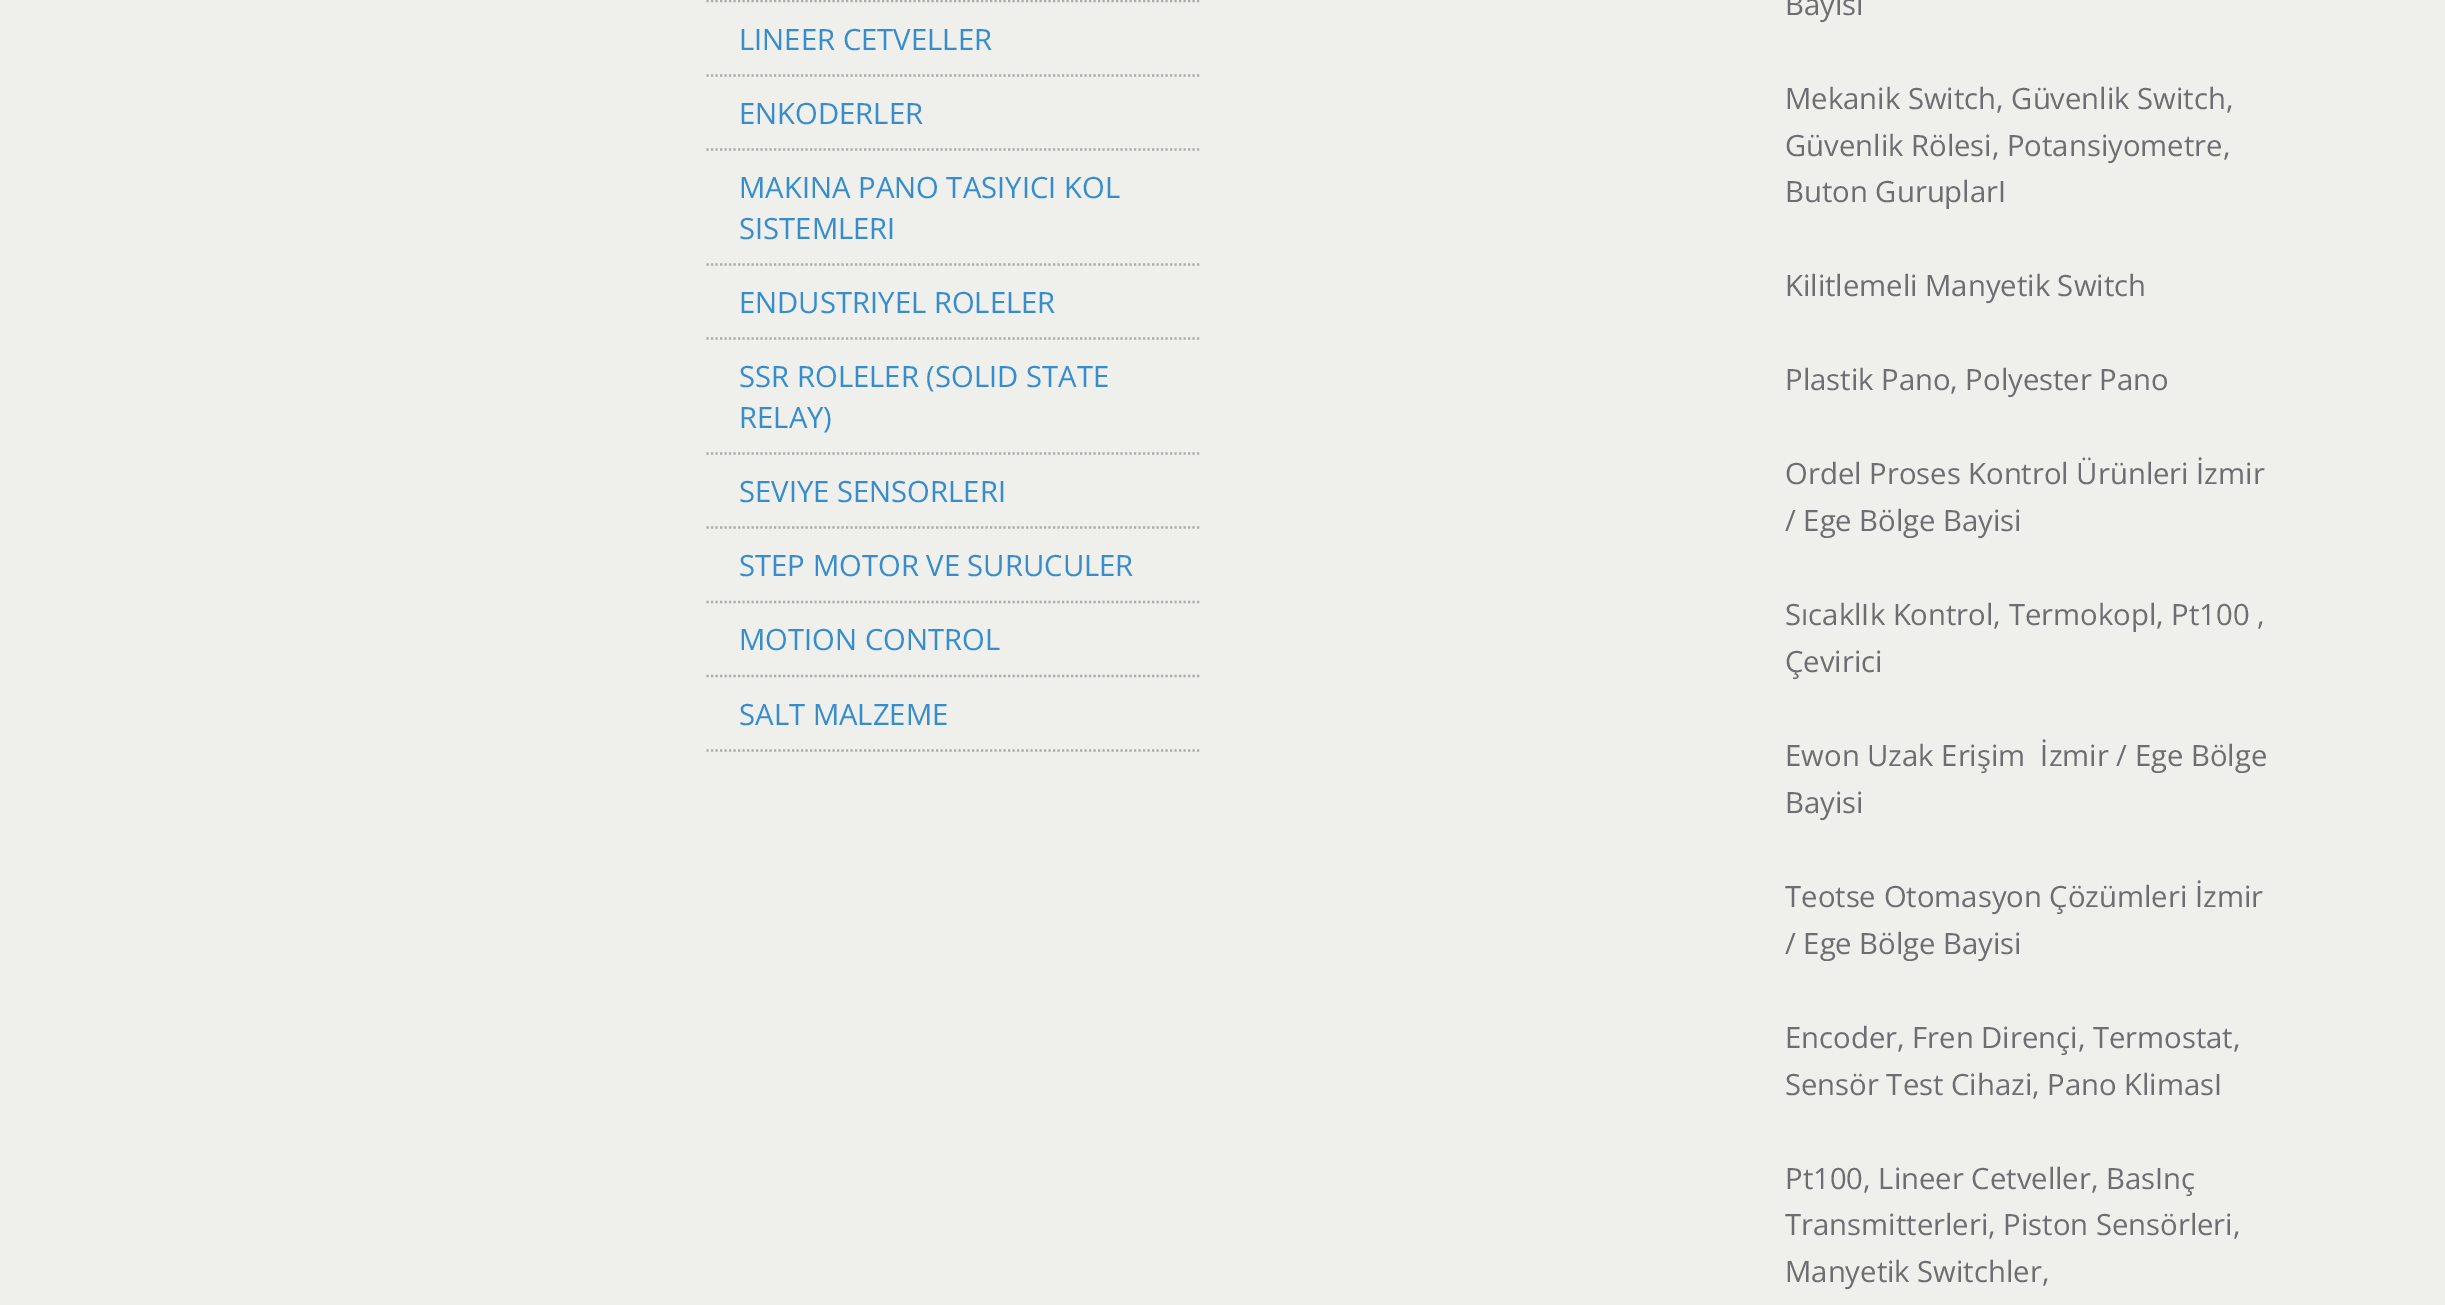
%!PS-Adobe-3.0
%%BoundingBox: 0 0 2445 1305
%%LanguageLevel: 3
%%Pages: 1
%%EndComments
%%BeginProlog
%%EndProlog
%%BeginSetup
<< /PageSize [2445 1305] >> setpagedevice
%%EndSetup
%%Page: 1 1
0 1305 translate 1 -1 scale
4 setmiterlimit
0.937 0.937 0.925 setrgbcolor
0 0 2445 1305 rectfill
0.671 0.671 0.667 setrgbcolor
2.2 setlinewidth
[2.25 2.25] 0 setdash
newpath 706.5 1 moveto 1201.5 1 lineto stroke
newpath 706.5 75.5 moveto 1201.5 75.5 lineto stroke
newpath 706.5 149.5 moveto 1201.5 149.5 lineto stroke
newpath 706.5 264.5 moveto 1201.5 264.5 lineto stroke
newpath 706.5 338.5 moveto 1201.5 338.5 lineto stroke
newpath 706.5 453.5 moveto 1201.5 453.5 lineto stroke
newpath 706.5 527.5 moveto 1201.5 527.5 lineto stroke
newpath 706.5 602 moveto 1201.5 602 lineto stroke
newpath 706.5 676 moveto 1201.5 676 lineto stroke
newpath 706.5 750.5 moveto 1201.5 750.5 lineto stroke
/OpenSans-Regular [29.25 0 0 -29.25 0 0] selectfont
0.212 0.549 0.8 setrgbcolor
739 50 moveto (LINEER CETVELLER) show
739 124 moveto (ENKODERLER) show
739 198 moveto (MAKINA PANO TASIYICI KOL) show
739 239 moveto (SISTEMLERI) show
739 313 moveto (ENDUSTRIYEL ROLELER) show
739 387 moveto (SSR ROLELER \(SOLID STATE) show
739 428 moveto (RELAY\)) show
739 502 moveto (SEVIYE SENSORLERI) show
739 576 moveto (STEP MOTOR VE SURUCULER) show
739 650 moveto (MOTION CONTROL) show
739 725 moveto (SALT MALZEME) show
0.427 0.431 0.443 setrgbcolor
1785 15 moveto (Bayisi) show
1785 109 moveto (Mekanik Switch, Güvenlik Switch,) show
1785 156 moveto (Güvenlik Rölesi, Potansiyometre,) show
1785 202 moveto (Buton GuruplarI) show
1785 296 moveto (Kilitlemeli Manyetik Switch) show
1785 390 moveto (Plastik Pano, Polyester Pano) show
1785 484 moveto (Ordel Proses Kontrol Ürünleri İzmir) show
1785 531 moveto (/ Ege Bölge Bayisi) show
1785 625 moveto (SıcaklIk Kontrol, Termokopl, Pt100 ,) show
1785 672 moveto (Çevirici) show
1785 766 moveto (Ewon Uzak Erişim  İzmir / Ege Bölge) show
1785 813 moveto (Bayisi) show
1785 907 moveto (Teotse Otomasyon Çözümleri İzmir) show
1785 954 moveto (/ Ege Bölge Bayisi) show
1785 1048 moveto (Encoder, Fren Dirençi, Termostat,) show
1785 1095 moveto (Sensör Test Cihazi, Pano KlimasI) show
1785 1189 moveto (Pt100, Lineer Cetveller, BasInç) show
1785 1235 moveto (Transmitterleri, Piston Sensörleri,) show
1785 1282 moveto (Manyetik Switchler,) show
showpage
%%EOF
